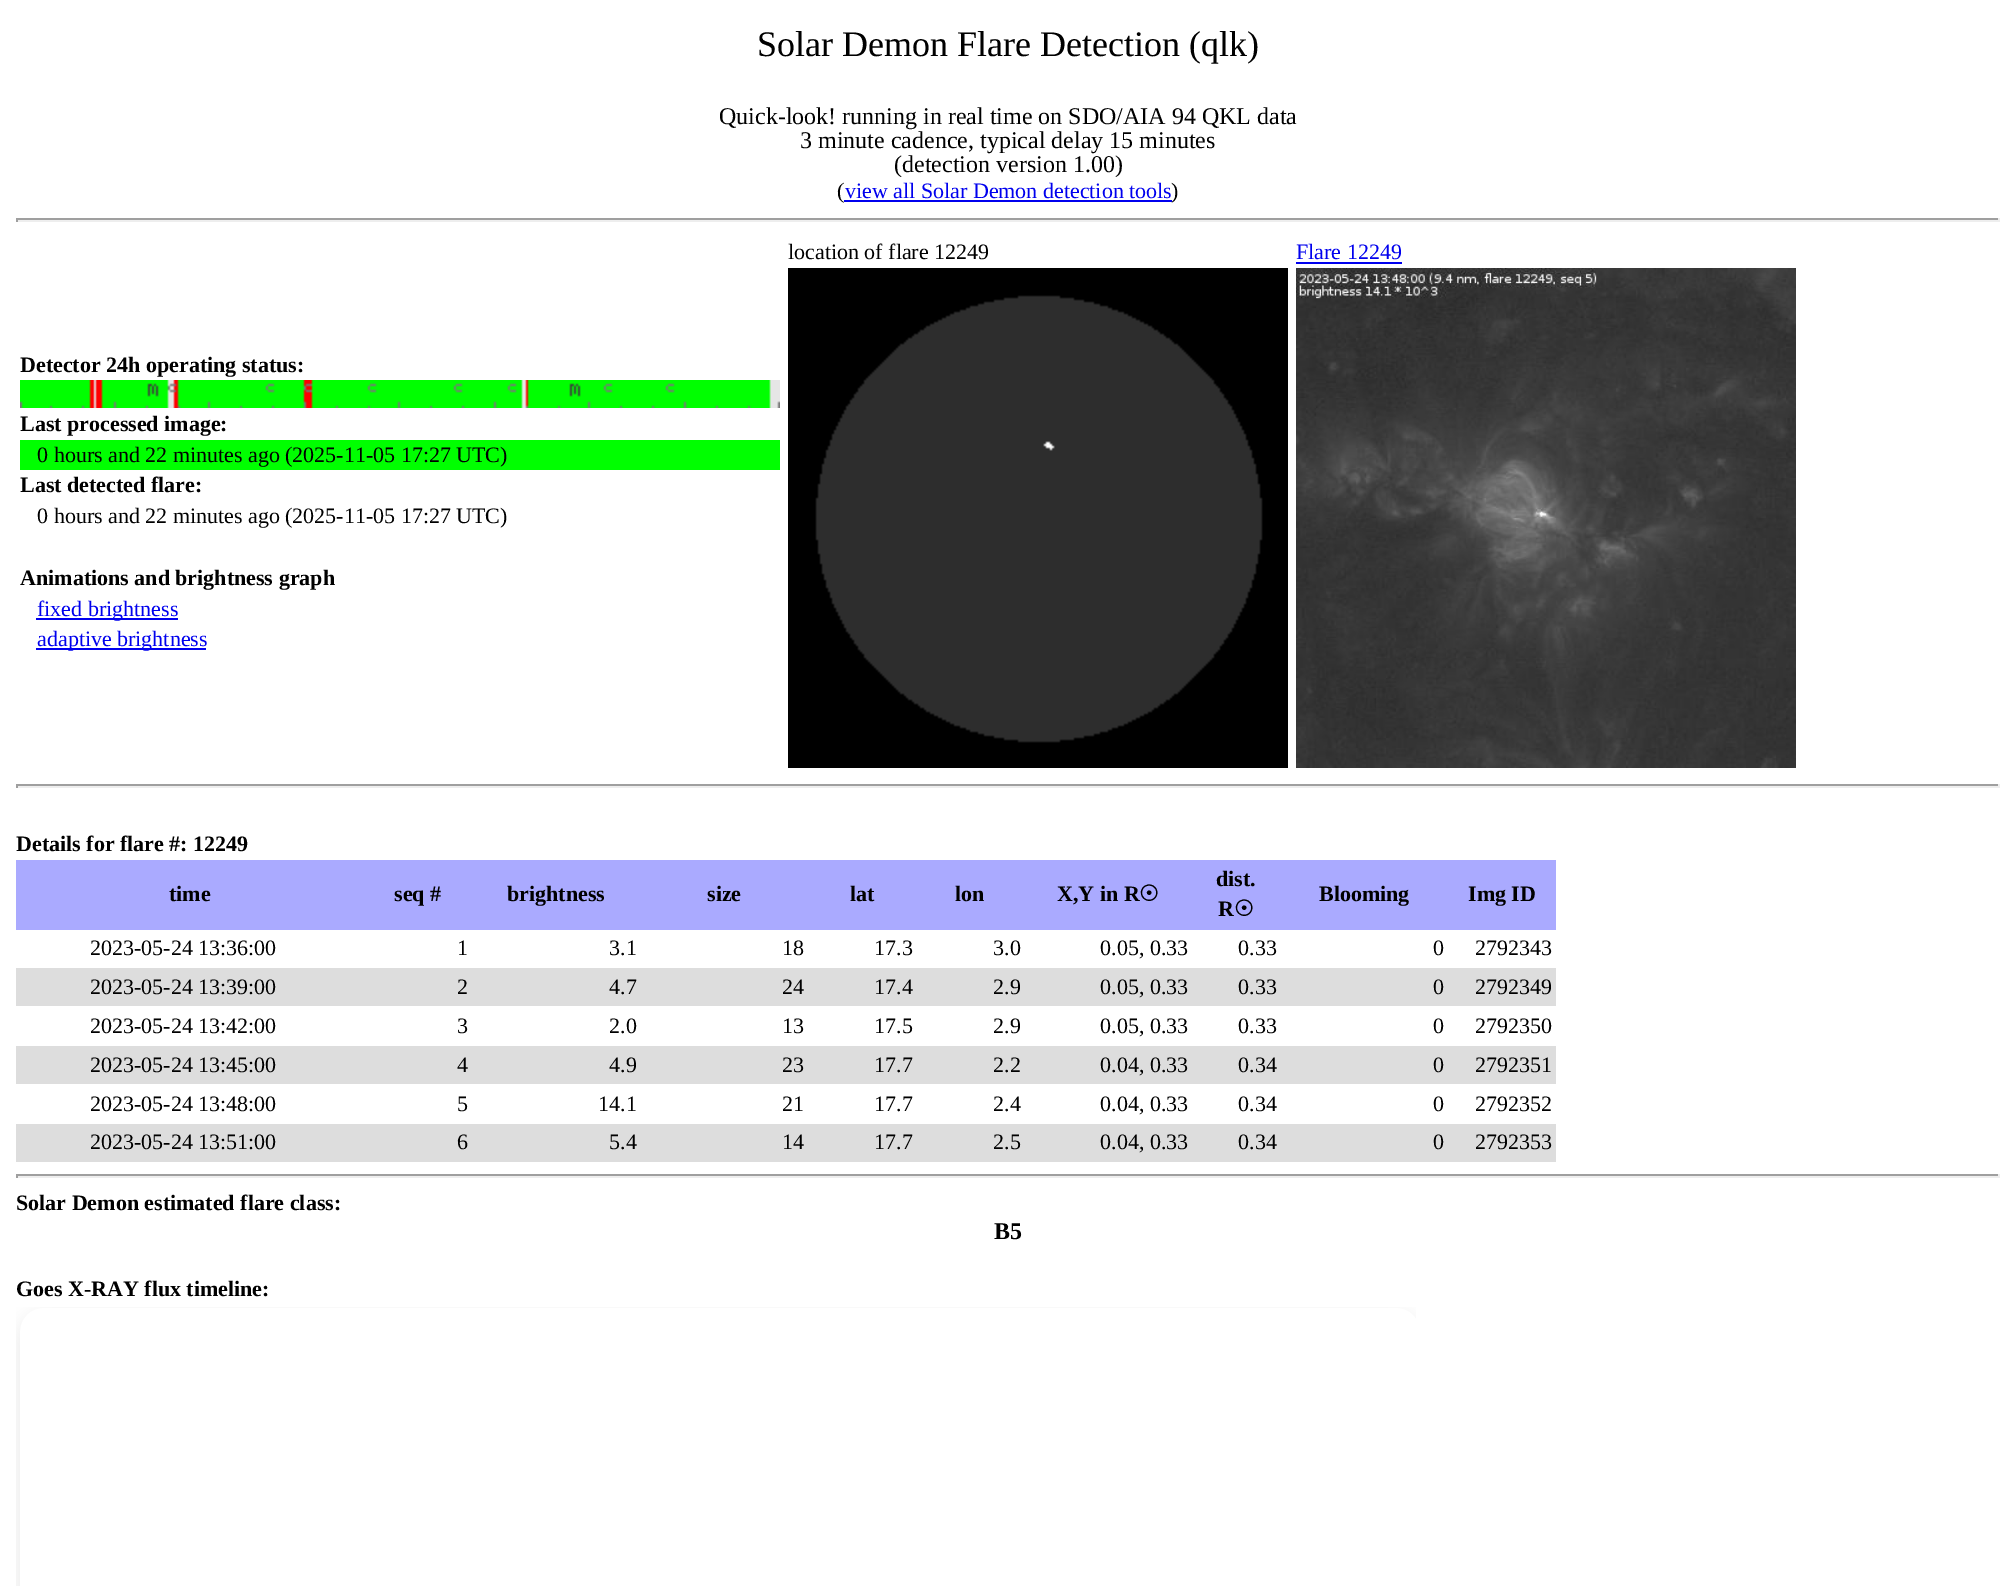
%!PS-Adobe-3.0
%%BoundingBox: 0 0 2016 1586
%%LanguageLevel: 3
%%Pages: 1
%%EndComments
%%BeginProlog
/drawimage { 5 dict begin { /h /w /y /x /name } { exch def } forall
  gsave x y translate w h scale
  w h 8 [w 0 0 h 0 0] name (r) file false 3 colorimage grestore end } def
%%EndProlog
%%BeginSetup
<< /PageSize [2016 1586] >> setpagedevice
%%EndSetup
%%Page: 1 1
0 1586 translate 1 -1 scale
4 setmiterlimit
1 setgray
0 0 2016 1586 rectfill
0 0 0.933 setrgbcolor
844 200 328 2 rectfill
0.624 setgray
16 218 1984 2 rectfill
0.933 setgray
1998 218 2 4 rectfill
16 220 1984 2 rectfill
0.624 setgray
16 218 2 4 rectfill
(images/1.raw) 788 268 500 500 drawimage
0 0 0.933 setrgbcolor
1296 262 106 2 rectfill
(images/2.raw) 1296 268 500 500 drawimage
(images/3.raw) 20 380 760 28 drawimage
0 1 0 setrgbcolor
20 440 760 30 rectfill
0 0 0.933 setrgbcolor
36 618 142 2 rectfill
36 648 170 2 rectfill
0.624 setgray
16 784 1984 2 rectfill
0.933 setgray
1998 784 2 4 rectfill
16 786 1984 2 rectfill
0.624 setgray
16 784 2 4 rectfill
0.667 0.667 1 setrgbcolor
16 860 1540 70 rectfill
0.867 setgray
16 968 1540 38 rectfill
16 1046 1540 38 rectfill
16 1124 1540 38 rectfill
0.624 setgray
16 1174 1984 2 rectfill
0.933 setgray
1998 1174 2 4 rectfill
16 1176 1984 2 rectfill
0.624 setgray
16 1174 2 4 rectfill
(images/4.raw) 16 1307 1400 279 drawimage
/LiberationSerif-Regular [36 0 0 -36 0 0] selectfont
0 setgray
757 56 moveto (Solar Demon Flare Detection \(qlk\)) show
/LiberationSerif-Regular [24 0 0 -24 0 0] selectfont
719 124 moveto (Quick-look! running in real time on SDO/AIA 94 QKL data) show
800 148 moveto (3 minute cadence, typical delay 15 minutes) show
894 172 moveto (\(detection version 1.00\)) show
/LiberationSerif-Regular [22 0 0 -22 0 0] selectfont
837 198 moveto (\() show
0 0 0.933 setrgbcolor
845 198 moveto (view all Solar Demon detection tools) show
0 setgray
1171 198 moveto (\)) show
788 259 moveto (location of flare 12249) show
0 0 0.933 setrgbcolor
1296 259 moveto (Flare 12249) show
/LiberationSerif-Bold [22 0 0 -22 0 0] selectfont
0 setgray
20 372 moveto (Detector 24h operating status:) show
20 431 moveto (Last processed image:) show
/LiberationSerif-Regular [22 0 0 -22 0 0] selectfont
37 462 moveto (0 hours and 22 minutes ago \(2025-11-05 17:27 UTC\)) show
/LiberationSerif-Bold [22 0 0 -22 0 0] selectfont
20 492 moveto (Last detected flare:) show
/LiberationSerif-Regular [22 0 0 -22 0 0] selectfont
37 523 moveto (0 hours and 22 minutes ago \(2025-11-05 17:27 UTC\)) show
/LiberationSerif-Bold [22 0 0 -22 0 0] selectfont
20 585 moveto (Animations and brightness graph) show
/LiberationSerif-Regular [22 0 0 -22 0 0] selectfont
0 0 0.933 setrgbcolor
37 616 moveto (fixed brightness) show
37 646 moveto (adaptive brightness) show
/LiberationSerif-Bold [22 0 0 -22 0 0] selectfont
0 setgray
16 851 moveto (Details for flare #: 12249) show
169 901 moveto (time) show
394 901 moveto (seq #) show
507 901 moveto (brightness) show
707 901 moveto (size) show
850 901 moveto (lat) show
955 901 moveto (lon) show
1057 901 moveto (X,Y in R) show
/DejaVuSans-Bold [22 0 0 -22 0 0] selectfont
1139 901 moveto (☉) show
/LiberationSerif-Bold [22 0 0 -22 0 0] selectfont
1216 886 moveto (dist.) show
1218 916 moveto (R) show
/DejaVuSans-Bold [22 0 0 -22 0 0] selectfont
1234 916 moveto (☉) show
/LiberationSerif-Bold [22 0 0 -22 0 0] selectfont
1319 901 moveto (Blooming) show
1468 901 moveto (Img ID) show
/LiberationSerif-Regular [22 0 0 -22 0 0] selectfont
90 955 moveto (2023-05-24 13:36:00) show
457 955 moveto (1) show
609 955 moveto (3.1) show
782 955 moveto (18) show
874 955 moveto (17.3) show
993 955 moveto (3.0) show
1100 955 moveto (0.05, 0.33) show
1238 955 moveto (0.33) show
1433 955 moveto (0) show
1475 955 moveto (2792343) show
90 994 moveto (2023-05-24 13:39:00) show
457 994 moveto (2) show
609 994 moveto (4.7) show
782 994 moveto (24) show
874 994 moveto (17.4) show
993 994 moveto (2.9) show
1100 994 moveto (0.05, 0.33) show
1238 994 moveto (0.33) show
1433 994 moveto (0) show
1475 994 moveto (2792349) show
90 1033 moveto (2023-05-24 13:42:00) show
457 1033 moveto (3) show
609 1033 moveto (2.0) show
782 1033 moveto (13) show
874 1033 moveto (17.5) show
993 1033 moveto (2.9) show
1100 1033 moveto (0.05, 0.33) show
1238 1033 moveto (0.33) show
1433 1033 moveto (0) show
1475 1033 moveto (2792350) show
90 1072 moveto (2023-05-24 13:45:00) show
457 1072 moveto (4) show
609 1072 moveto (4.9) show
782 1072 moveto (23) show
874 1072 moveto (17.7) show
993 1072 moveto (2.2) show
1100 1072 moveto (0.04, 0.33) show
1238 1072 moveto (0.34) show
1433 1072 moveto (0) show
1475 1072 moveto (2792351) show
90 1111 moveto (2023-05-24 13:48:00) show
457 1111 moveto (5) show
598 1111 moveto (14.1) show
782 1111 moveto (21) show
874 1111 moveto (17.7) show
993 1111 moveto (2.4) show
1100 1111 moveto (0.04, 0.33) show
1238 1111 moveto (0.34) show
1433 1111 moveto (0) show
1475 1111 moveto (2792352) show
90 1149 moveto (2023-05-24 13:51:00) show
457 1149 moveto (6) show
609 1149 moveto (5.4) show
782 1149 moveto (14) show
874 1149 moveto (17.7) show
993 1149 moveto (2.5) show
1100 1149 moveto (0.04, 0.33) show
1238 1149 moveto (0.34) show
1433 1149 moveto (0) show
1475 1149 moveto (2792353) show
/LiberationSerif-Bold [22 0 0 -22 0 0] selectfont
16 1210 moveto (Solar Demon estimated flare class:) show
/LiberationSerif-Bold [24 0 0 -24 0 0] selectfont
994 1239 moveto (B5) show
/LiberationSerif-Bold [22 0 0 -22 0 0] selectfont
16 1296 moveto (Goes X-RAY flux timeline:) show
showpage
%%EOF
